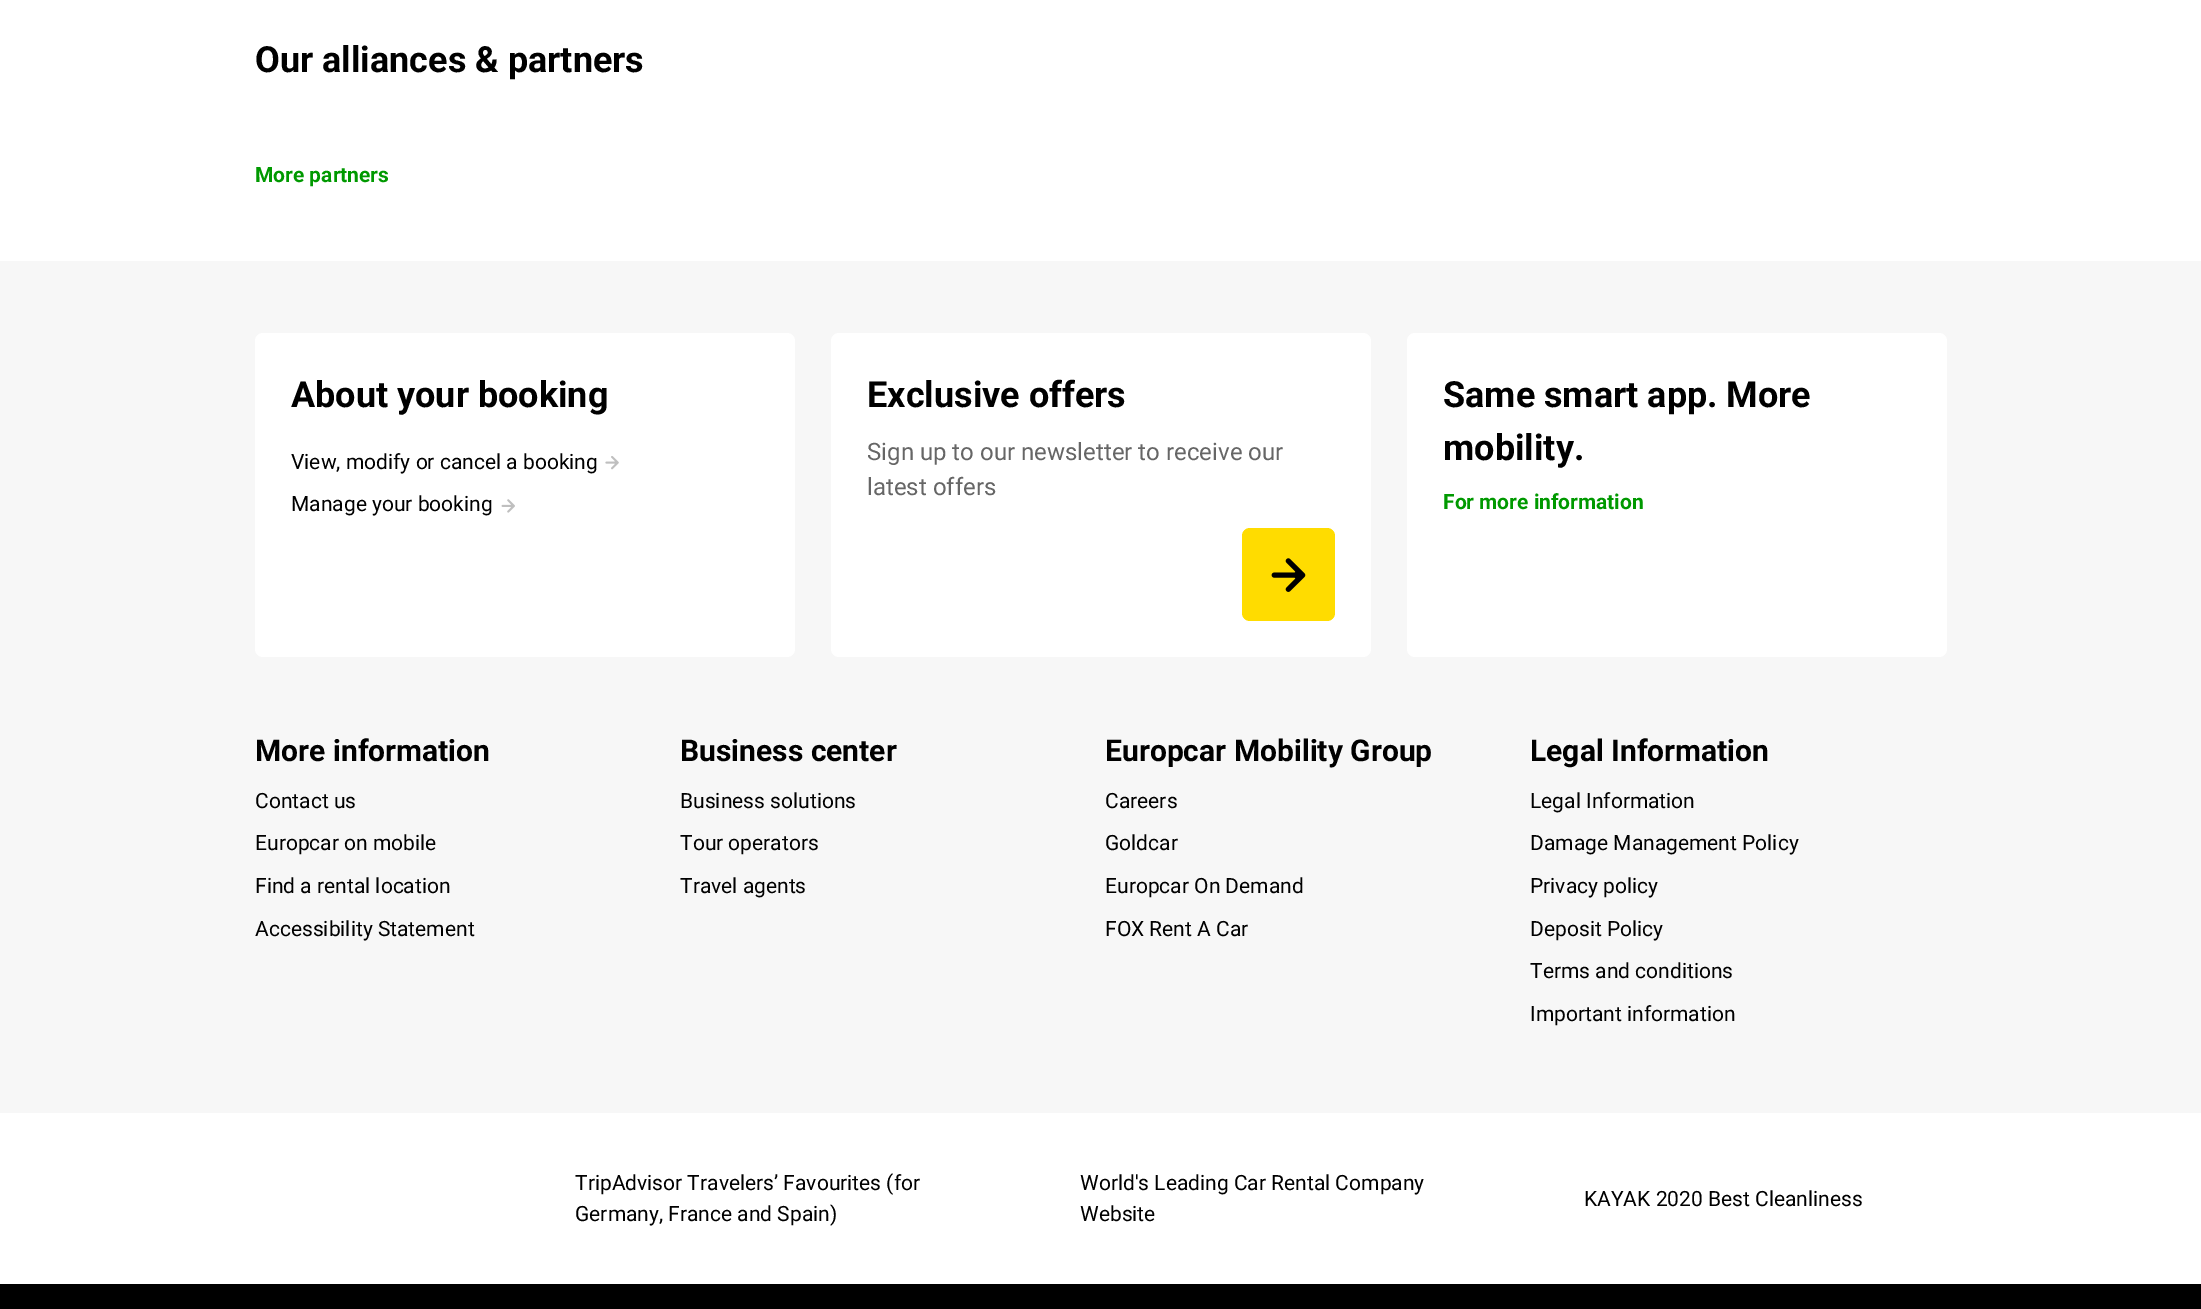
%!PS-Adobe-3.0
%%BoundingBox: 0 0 2201 1309
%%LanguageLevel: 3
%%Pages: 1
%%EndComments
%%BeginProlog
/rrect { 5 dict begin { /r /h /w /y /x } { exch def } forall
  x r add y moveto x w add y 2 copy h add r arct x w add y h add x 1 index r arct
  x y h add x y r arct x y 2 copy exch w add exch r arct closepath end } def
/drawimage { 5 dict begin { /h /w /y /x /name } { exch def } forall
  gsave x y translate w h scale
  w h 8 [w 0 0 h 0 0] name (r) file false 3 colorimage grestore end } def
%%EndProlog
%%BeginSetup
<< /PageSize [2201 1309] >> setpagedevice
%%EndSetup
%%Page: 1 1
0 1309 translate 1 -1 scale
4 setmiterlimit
1 setgray
0 0 2201 1309 rectfill
0.969 setgray
0 261 2201 852 rectfill
1 setgray
255 333 540 324 8 rrect fill
(images/1.raw) 605 456 14 14 drawimage
(images/2.raw) 501 499 14 14 drawimage
831 333 540 324 8 rrect fill
1 0.863 0 setrgbcolor
1242 528 93 93 8 rrect fill
(images/3.raw) 1271 558 35 34 drawimage
1 setgray
1407 333 540 324 8 rrect fill
0 setgray
0 1284 2201 25 rectfill
/Roboto-Bold [36 0 0 -36 0 0] selectfont
255 72 moveto (Our alliances & partners) show
/Roboto-Bold [21 0 0 -21 0 0] selectfont
0 0.6 0 setrgbcolor
255 182 moveto (More partners) show
/Roboto-Bold [36 0 0 -36 0 0] selectfont
0 setgray
291 407 moveto (About your booking) show
/Roboto-Regular [21 0 0 -21 0 0] selectfont
291 469 moveto (View, modify or cancel a booking) show
291 511 moveto (Manage your booking) show
/Roboto-Bold [36 0 0 -36 0 0] selectfont
867 407 moveto (Exclusive offers) show
/Roboto-Regular [24 0 0 -24 0 0] selectfont
0.4 setgray
867 460 moveto (Sign up to our newsletter to receive our) show
867 495 moveto (latest offers) show
/Roboto-Bold [36 0 0 -36 0 0] selectfont
0 setgray
1443 407 moveto (Same smart app. More) show
1443 460 moveto (mobility.) show
/Roboto-Bold [21 0 0 -21 0 0] selectfont
0 0.6 0 setrgbcolor
1443 509 moveto (For more information) show
/Roboto-Bold [30 0 0 -30 0 0] selectfont
0 setgray
255 761 moveto (More information) show
/Roboto-Regular [21 0 0 -21 0 0] selectfont
255 808 moveto (Contact us) show
255 850 moveto (Europcar on mobile) show
255 893 moveto (Find a rental location) show
255 936 moveto (Accessibility Statement) show
/Roboto-Bold [30 0 0 -30 0 0] selectfont
680 761 moveto (Business center) show
/Roboto-Regular [21 0 0 -21 0 0] selectfont
680 808 moveto (Business solutions) show
680 850 moveto (Tour operators) show
680 893 moveto (Travel agents) show
/Roboto-Bold [30 0 0 -30 0 0] selectfont
1105 761 moveto (Europcar Mobility Group) show
/Roboto-Regular [21 0 0 -21 0 0] selectfont
1105 808 moveto (Careers) show
1105 850 moveto (Goldcar) show
1105 893 moveto (Europcar On Demand) show
1105 936 moveto (FOX Rent A Car) show
/Roboto-Bold [30 0 0 -30 0 0] selectfont
1530 761 moveto (Legal Information) show
/Roboto-Regular [21 0 0 -21 0 0] selectfont
1530 808 moveto (Legal Information) show
1530 850 moveto (Damage Management Policy) show
1530 893 moveto (Privacy policy) show
1530 936 moveto (Deposit Policy) show
1530 978 moveto (Terms and conditions) show
1530 1021 moveto (Important information) show
575 1190 moveto (TripAdvisor Travelers’ Favourites \(for) show
575 1221 moveto (Germany, France and Spain\)) show
1080 1190 moveto (World's Leading Car Rental Company) show
1080 1221 moveto (Website) show
1584 1206 moveto (KAYAK 2020 Best Cleanliness) show
showpage
%%EOF
